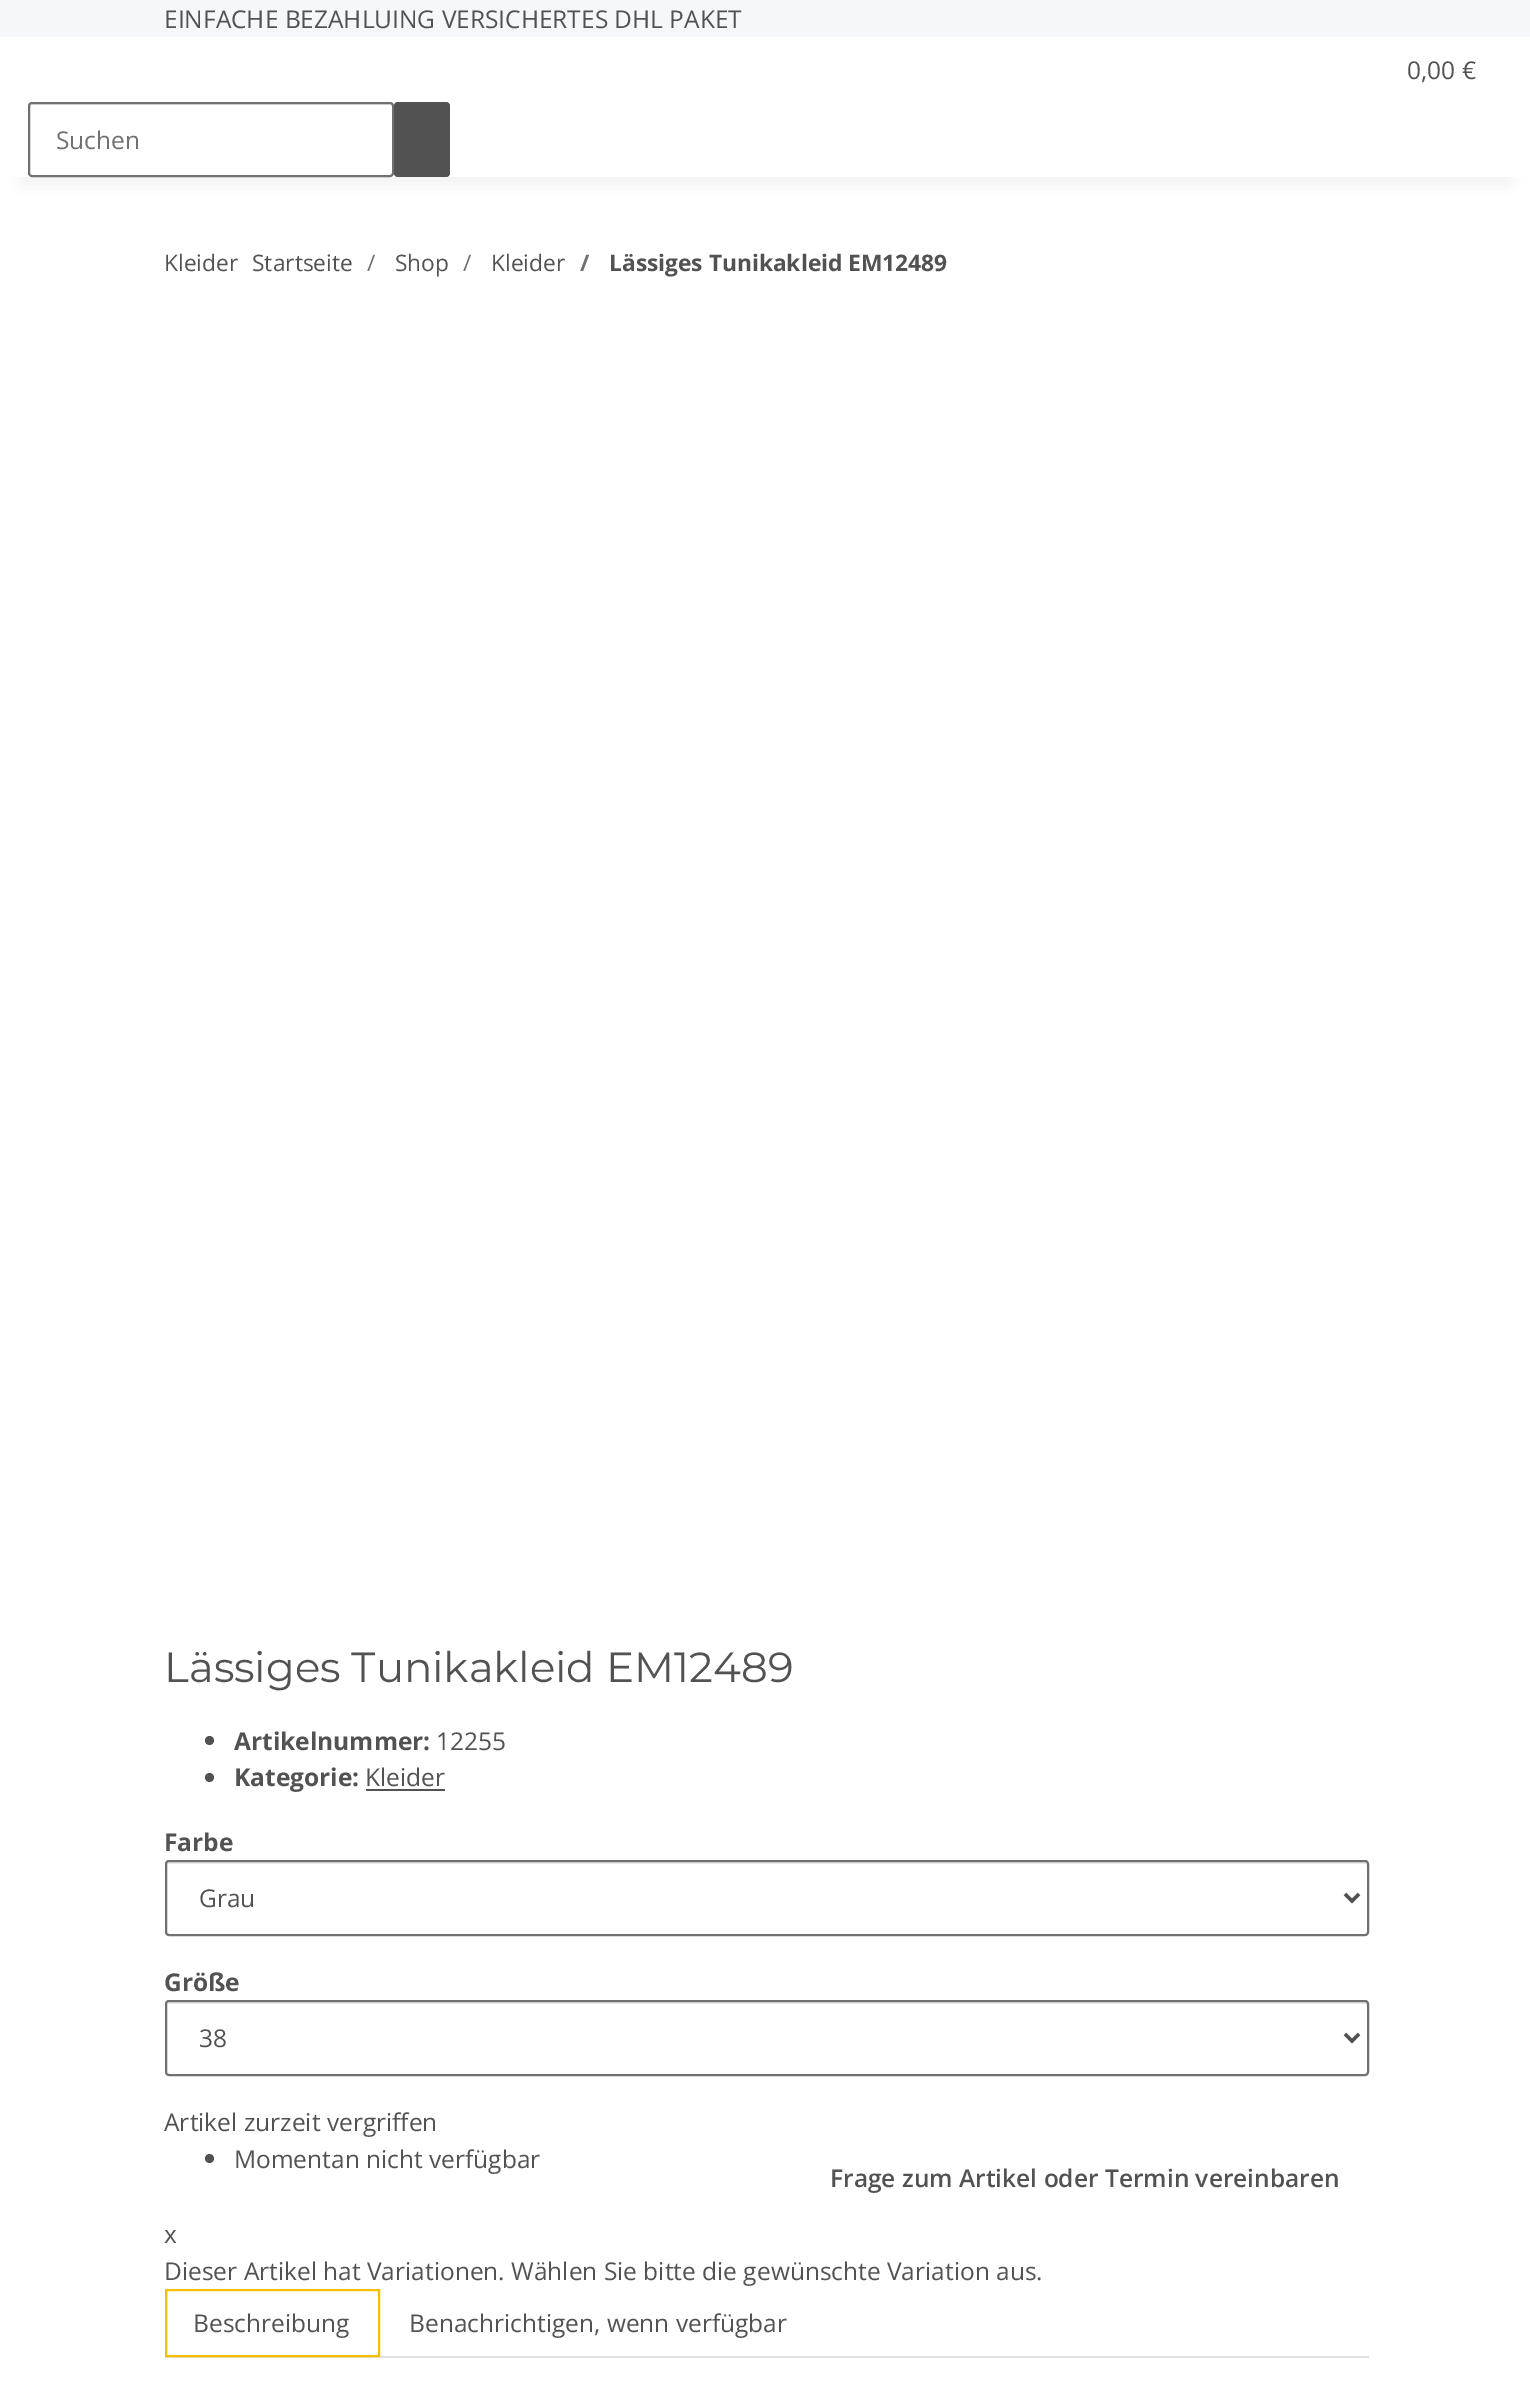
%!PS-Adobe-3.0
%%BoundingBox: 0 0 1530 2406
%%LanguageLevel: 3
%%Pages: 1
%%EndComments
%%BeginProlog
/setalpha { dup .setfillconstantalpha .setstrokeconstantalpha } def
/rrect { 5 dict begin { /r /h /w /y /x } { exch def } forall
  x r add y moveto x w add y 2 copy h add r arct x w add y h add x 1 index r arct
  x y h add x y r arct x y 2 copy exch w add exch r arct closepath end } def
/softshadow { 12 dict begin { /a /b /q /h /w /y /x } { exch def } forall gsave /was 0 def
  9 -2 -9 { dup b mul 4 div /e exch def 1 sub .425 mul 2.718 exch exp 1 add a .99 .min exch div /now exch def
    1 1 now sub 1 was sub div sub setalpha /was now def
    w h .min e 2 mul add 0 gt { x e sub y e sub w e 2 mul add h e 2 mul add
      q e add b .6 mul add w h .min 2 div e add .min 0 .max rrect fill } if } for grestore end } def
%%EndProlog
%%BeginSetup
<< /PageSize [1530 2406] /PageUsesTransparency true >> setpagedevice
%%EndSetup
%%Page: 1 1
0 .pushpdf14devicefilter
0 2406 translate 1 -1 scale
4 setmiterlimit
0.961 0.969 0.98 setrgbcolor
0 0 1530 2406 rectfill
1 setgray
0 177 1530 2229 rectfill
0 setgray
21 86 1489 98 0 8 0.06 softshadow
1 setgray
0 37 1530 140 rectfill
0.925 setgray
newpath 32 105 moveto 390 105 lineto 391 105 392 106 392 107 curveto 392 105 lineto 392 104 391 103 390 103 curveto 32 103 lineto 31 103 30 104 30 105 curveto 30 107 lineto 30 106 31 105 32 105 curveto closepath fill
0.439 setgray
2 setlinewidth
29 103 364 73 3 rrect stroke
0.322 setgray
394 102 56 75 4 rrect fill
newpath 209.5 1740.5 4.5 0 360 arc closepath fill
newpath 209.5 1777.5 4.5 0 360 arc closepath fill
366 1789 79 2 rectfill
0.925 setgray
newpath 168 1864 moveto 1365 1864 lineto 1366 1864 1367 1865 1367 1866 curveto 1367 1864 1367 1862 1365 1862 curveto 168 1862 lineto 166 1862 166 1864 166 1866 curveto 166 1865 167 1864 168 1864 curveto closepath fill
0.439 setgray
166 1861 1202 74 3 rrect stroke
0.322 setgray
3.5 setlinewidth
newpath 1345 1894 moveto 1352 1901 lineto 1359 1894 lineto stroke
0.925 setgray
newpath 168 2004 moveto 1365 2004 lineto 1366 2004 1367 2005 1367 2006 curveto 1367 2004 1367 2002 1365 2002 curveto 168 2002 lineto 166 2002 166 2004 166 2006 curveto 166 2005 167 2004 168 2004 curveto closepath fill
0.439 setgray
2 setlinewidth
166 2001 1202 74 3 rrect stroke
0.322 setgray
3.5 setlinewidth
newpath 1345 2034 moveto 1352 2041 lineto 1359 2034 lineto stroke
newpath 209.5 2158.5 4.5 0 360 arc closepath fill
0.871 0.886 0.902 setrgbcolor
165 2356 1204 2 rectfill
0.973 0.749 0 setrgbcolor
2 setlinewidth
166 2290 213 66 rectstroke
/OpenSans-Regular [24.5 0 0 -24.5 0 0] selectfont
0.322 setgray
164 28 moveto (EINFACHE BEZAHLUING VERSICHERTES DHL PAKET) show
1407 79 moveto (0,00 €) show
0.439 setgray
56 149 moveto (Suchen) show
/OpenSans-Regular [22.75 0 0 -22.75 0 0] selectfont
0.322 setgray
164 271 moveto (Kleider) show
252 271 moveto (Startseite) show
0.439 setgray
367 271 moveto (/) show
0.322 setgray
395 271 moveto (Shop) show
0.439 setgray
463 271 moveto (/) show
0.322 setgray
491 271 moveto (Kleider) show
/OpenSans-Bold [22.75 0 0 -22.75 0 0] selectfont
0.439 setgray
580 271 moveto (/) show
0.322 setgray
609 271 moveto (Lässiges Tunikakleid EM12489) show
/Montserrat-Regular [42 0 0 -42 0 0] selectfont
164 1682 moveto (Lässiges Tunikakleid EM12489) show
/OpenSans-Bold [24.5 0 0 -24.5 0 0] selectfont
234 1750 moveto (Artikelnummer:) show
/OpenSans-Regular [24.5 0 0 -24.5 0 0] selectfont
436 1750 moveto (12255) show
/OpenSans-Bold [24.5 0 0 -24.5 0 0] selectfont
234 1786 moveto (Kategorie:) show
/OpenSans-Regular [24.5 0 0 -24.5 0 0] selectfont
365 1786 moveto (Kleider) show
/OpenSans-Bold [24.5 0 0 -24.5 0 0] selectfont
164 1851 moveto (Farbe) show
/OpenSans-Regular [24.5 0 0 -24.5 0 0] selectfont
199 1907 moveto (Grau) show
/OpenSans-Bold [24.5 0 0 -24.5 0 0] selectfont
164 1991 moveto (Größe) show
gsave
200 2020 1113 36 rectclip
/OpenSans-Regular [24.5 0 0 -24.5 0 0] selectfont
199 2047 moveto (38) show
grestore
/OpenSans-Regular [24.5 0 0 -24.5 0 0] selectfont
164 2131 moveto (Artikel zurzeit vergriffen) show
234 2168 moveto (Momentan nicht verfügbar) show
/OpenSans-SemiBold [24.5 0 0 -24.5 0 0] selectfont
830 2187 moveto (Frage zum Artikel oder Termin vereinbaren) show
/OpenSans-Regular [24.5 0 0 -24.5 0 0] selectfont
164 2243 moveto (x) show
164 2280 moveto (Dieser Artikel hat Variationen. Wählen Sie bitte die gewünschte Variation aus.) show
193 2332 moveto (Beschreibung) show
409 2332 moveto (Benachrichtigen, wenn verfügbar) show
.poppdf14devicefilter showpage
%%EOF
